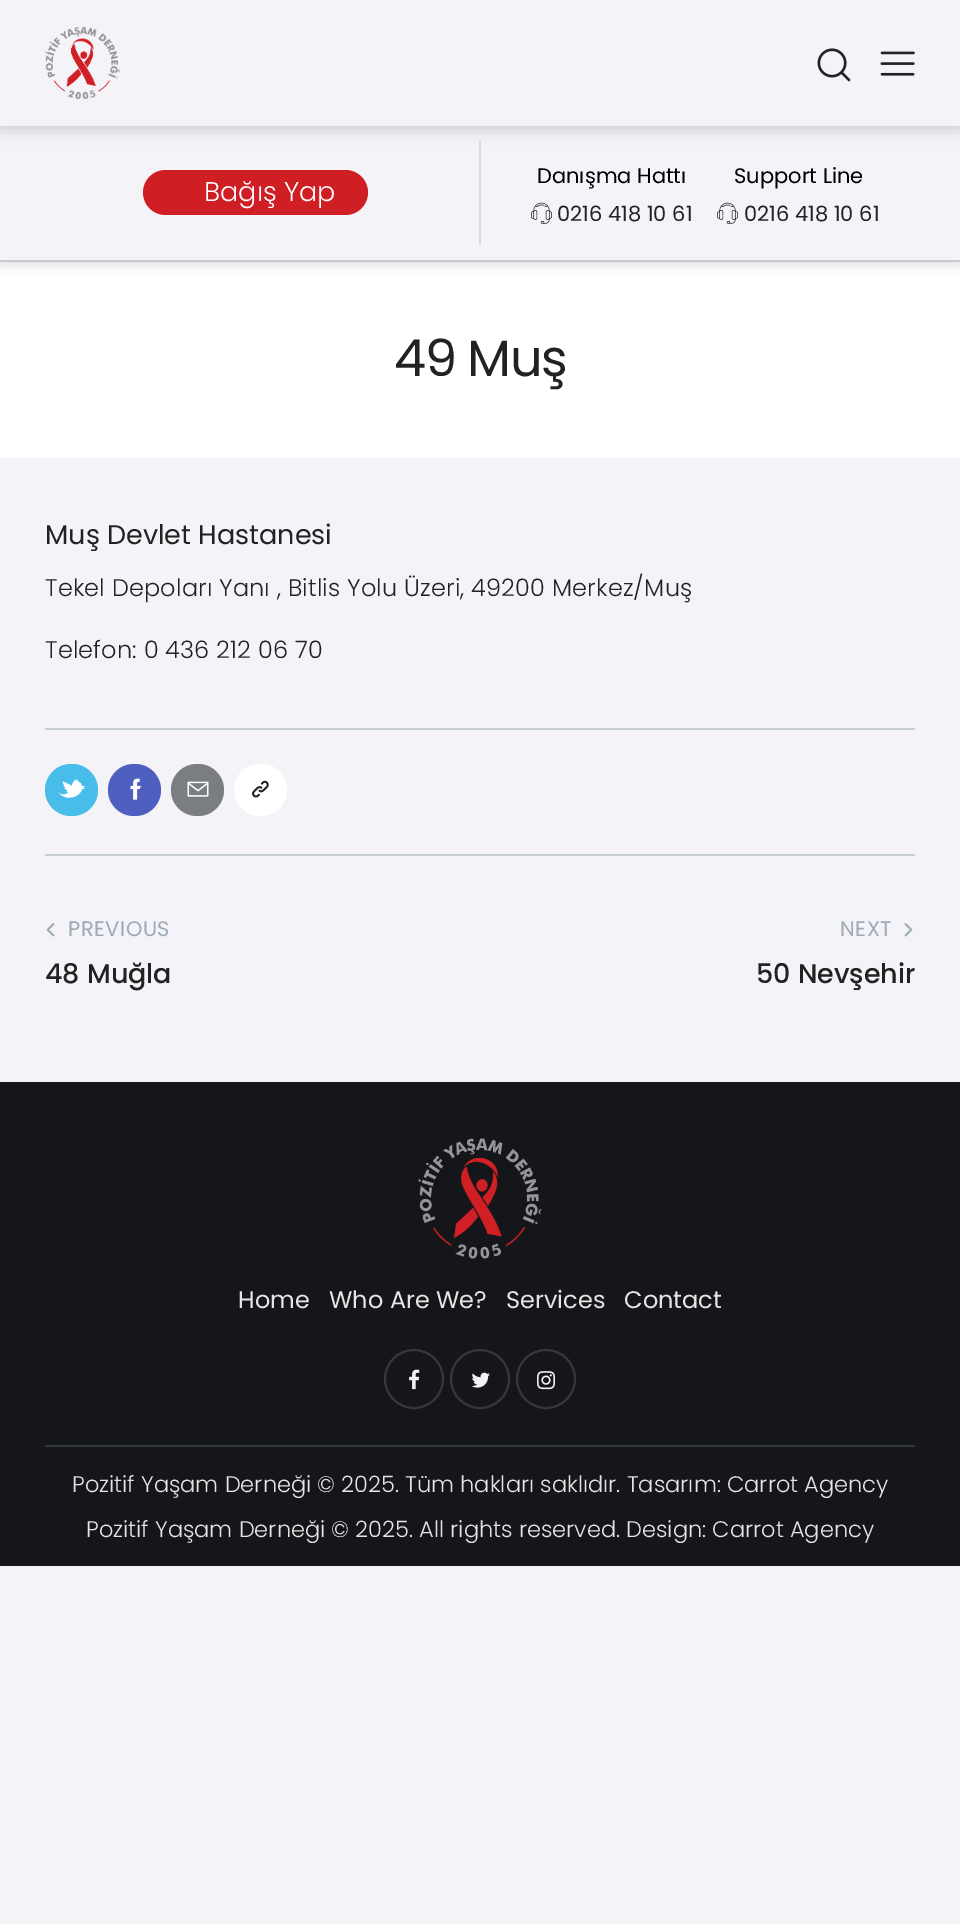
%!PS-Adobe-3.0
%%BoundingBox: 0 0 960 1924
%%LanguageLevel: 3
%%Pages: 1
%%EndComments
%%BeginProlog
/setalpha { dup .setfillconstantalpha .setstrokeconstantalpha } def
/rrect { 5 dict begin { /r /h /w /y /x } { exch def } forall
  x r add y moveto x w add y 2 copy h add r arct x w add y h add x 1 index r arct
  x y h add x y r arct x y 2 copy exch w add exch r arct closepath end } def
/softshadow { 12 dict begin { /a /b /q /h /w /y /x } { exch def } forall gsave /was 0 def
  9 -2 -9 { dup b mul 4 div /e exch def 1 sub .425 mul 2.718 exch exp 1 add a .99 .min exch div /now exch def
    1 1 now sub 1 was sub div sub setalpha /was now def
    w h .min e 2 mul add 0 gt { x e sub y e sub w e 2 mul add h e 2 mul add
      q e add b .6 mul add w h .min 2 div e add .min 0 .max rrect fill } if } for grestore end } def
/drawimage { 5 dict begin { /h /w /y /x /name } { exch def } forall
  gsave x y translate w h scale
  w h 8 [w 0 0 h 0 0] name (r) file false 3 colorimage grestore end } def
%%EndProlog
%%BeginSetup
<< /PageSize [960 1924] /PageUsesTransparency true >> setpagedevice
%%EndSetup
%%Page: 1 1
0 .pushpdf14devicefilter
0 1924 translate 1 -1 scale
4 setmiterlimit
0.957 0.953 0.973 setrgbcolor
0 0 960 1924 rectfill
1 setgray
0 262 960 196 rectfill
0.871 0.886 0.898 setrgbcolor
0 260 960 2 rectfill
0 setgray
0 128 960 133 0 7.5 0.2 softshadow
0.957 0.953 0.973 setrgbcolor
0 126 960 134 rectfill
0.863 setgray
479 141 2 104 rectfill
0 setgray
0 2 960 126 0 7.5 0.2 softshadow
0.957 0.953 0.973 setrgbcolor
0 0 960 126 rectfill
(images/1.raw) 45 27 75 72 drawimage
(images/2.raw) 817 48 34 34 drawimage
(images/3.raw) 880 51 35 25 drawimage
0.812 0.118 0.141 setrgbcolor
143 170 225 45 22.5 rrect fill
(images/4.raw) 531 202 21 22 drawimage
(images/4.raw) 717 202 21 22 drawimage
0.78 0.808 0.827 setrgbcolor
45 728 870 2 rectfill
0.282 0.741 0.914 setrgbcolor
45 764 53 52 26 rrect fill
(images/5.raw) 58 779 28 19 drawimage
0.31 0.373 0.749 setrgbcolor
108 764 53 52 26 rrect fill
(images/6.raw) 130 778 11 22 drawimage
0.478 0.494 0.514 setrgbcolor
171 764 53 52 26 rrect fill
(images/7.raw) 187 781 22 16 drawimage
1 setgray
234 764 53 52 26 rrect fill
(images/8.raw) 252 780 17 18 drawimage
0.78 0.808 0.827 setrgbcolor
45 854 870 2 rectfill
(images/9.raw) 46 923 9 14 drawimage
(images/10.raw) 904 923 9 14 drawimage
0.082 0.086 0.098 setrgbcolor
0 1082 960 484 rectfill
(images/11.raw) 418 1138 124 121 drawimage
0.212 0.216 0.227 setrgbcolor
2 setlinewidth
newpath 414 1379 29 0 360 arc closepath stroke
(images/12.raw) 409 1369 11 21 drawimage
newpath 480 1379 29 0 360 arc closepath stroke
(images/13.raw) 471 1372 19 16 drawimage
newpath 546 1379 29 0 360 arc closepath stroke
(images/14.raw) 537 1371 18 19 drawimage
0.196 0.212 0.255 setrgbcolor
45 1445 870 2 rectfill
/Poppins-Light [27 0 0 -27 0 0] selectfont
1 setgray
204 201 moveto (Bağış Yap) show
/Poppins-Regular [21 0 0 -21 0 0] selectfont
0 setgray
537 183 moveto (Danışma Hattı) show
0.133 setgray
557 221 moveto (0216 418 10 61) show
0 setgray
734 183 moveto (Support Line) show
0.133 setgray
744 221 moveto (0216 418 10 61) show
/Poppins-Regular [51 0 0 -51 0 0] selectfont
394 376 moveto -1.5 0 (49 Muş) ashow
/Poppins-Regular [27 0 0 -27 0 0] selectfont
45 544 moveto (Muş Devlet Hastanesi) show
/Poppins-Light [24 0 0 -24 0 0] selectfont
45 596 moveto 0.15 0 (Tekel Depoları Yanı , Bitlis Yolu Üzeri, 49200 Merkez/Muş) ashow
45 658 moveto 0.15 0 (Telefon: 0 436 212 06 70) ashow
/Poppins-Regular [21 0 0 -21 0 0] selectfont
0.616 0.663 0.71 setrgbcolor
68 936 moveto 0.5 0 (PREVIOUS) ashow
/Poppins-Medium [27 0 0 -27 0 0] selectfont
0.133 setgray
45 983 moveto (48 Muğla) show
/Poppins-Regular [21 0 0 -21 0 0] selectfont
0.616 0.663 0.71 setrgbcolor
840 936 moveto 0.5 0 (NEXT) ashow
/Poppins-Medium [27 0 0 -27 0 0] selectfont
0.133 setgray
756 983 moveto (50 Nevşehir) show
/Poppins-Regular [24 0 0 -24 0 0] selectfont
0.898 setgray
238 1308 moveto (Home) show
329 1308 moveto (Who Are We?) show
506 1308 moveto (Services) show
624 1308 moveto (Contact) show
/Poppins-Light [22.5 0 0 -22.5 0 0] selectfont
72 1492 moveto (Pozitif Yaşam Derneği © 2025. Tüm hakları saklıdır. Tasarım: Carrot Agency) show
86 1537 moveto (Pozitif Yaşam Derneği © 2025. All rights reserved. Design: Carrot Agency) show
.poppdf14devicefilter showpage
%%EOF
